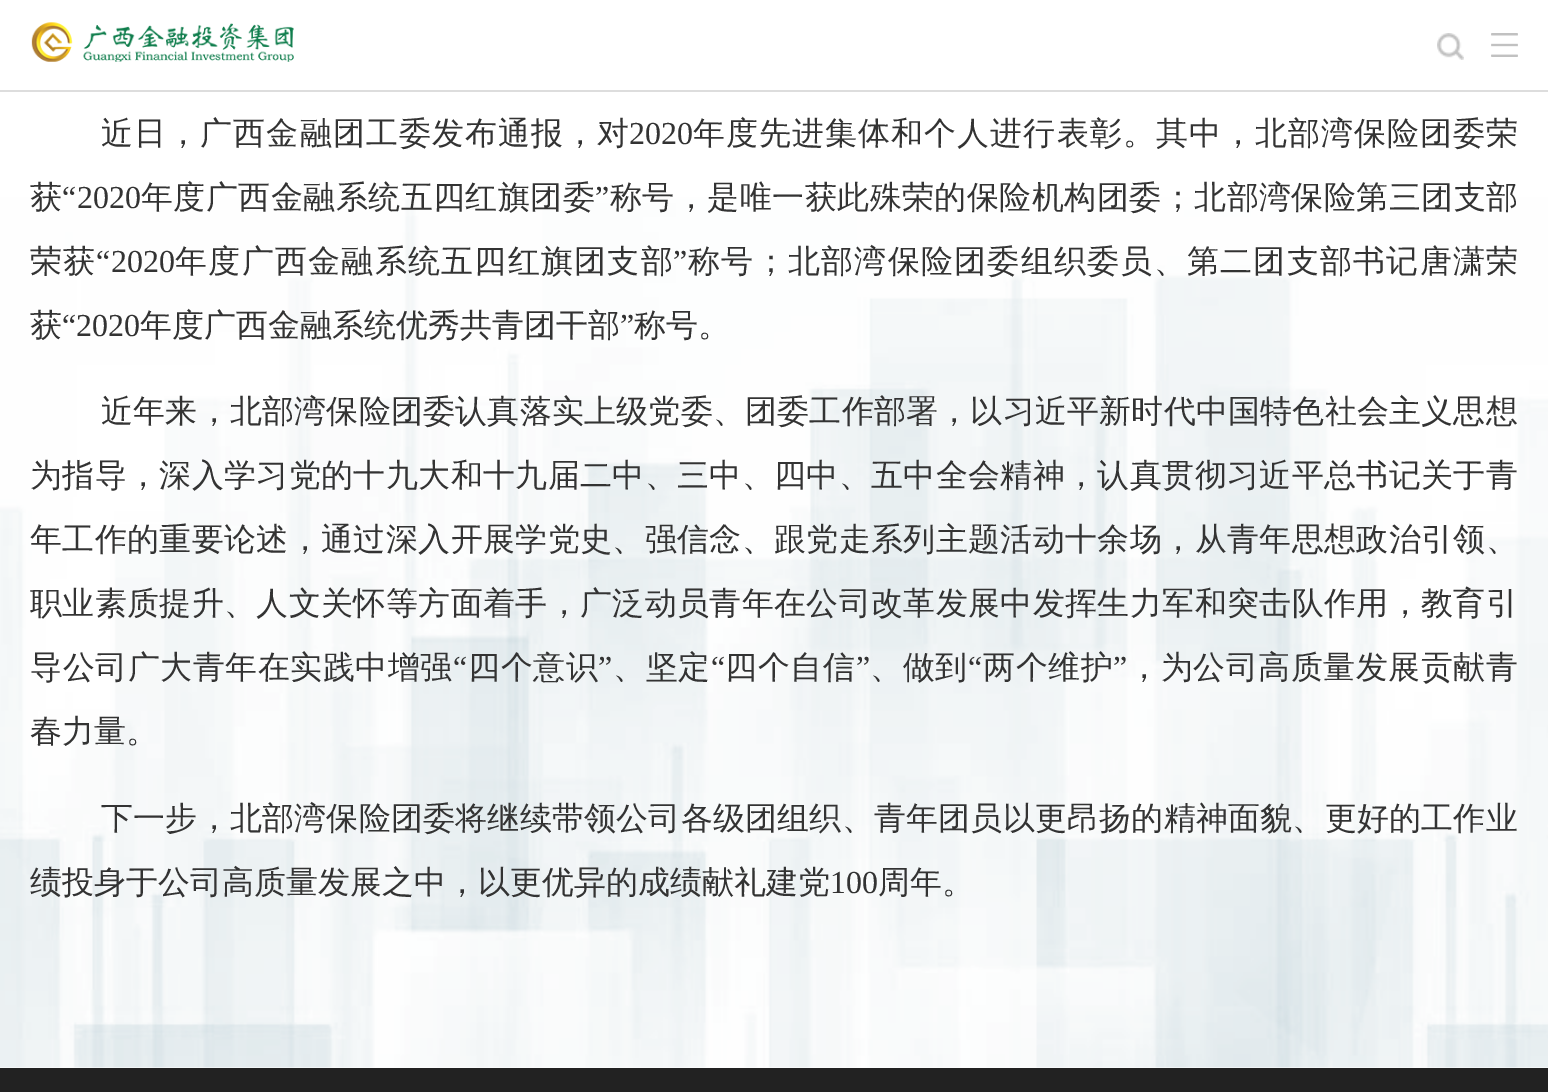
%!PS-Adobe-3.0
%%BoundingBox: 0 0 1548 1092
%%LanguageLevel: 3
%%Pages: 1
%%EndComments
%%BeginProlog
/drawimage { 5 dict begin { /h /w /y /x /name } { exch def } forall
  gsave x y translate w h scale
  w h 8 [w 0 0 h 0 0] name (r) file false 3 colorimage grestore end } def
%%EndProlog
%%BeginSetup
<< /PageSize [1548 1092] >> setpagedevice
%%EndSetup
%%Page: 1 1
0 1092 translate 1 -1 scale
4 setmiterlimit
1 setgray
0 0 1548 1092 rectfill
0.867 setgray
0 90 1548 2 rectfill
(images/1.raw) 31 22 263 40 drawimage
(images/2.raw) 1437 33 27 27 drawimage
(images/3.raw) 1491 33 27 24 drawimage
(images/4.raw) 0 197 1548 871 drawimage
0.133 setgray
0 1068 1548 24 rectfill
/WenQuanYiZenHei-Medium [32 0 0 -32 0 0] selectfont
0.2 setgray
101 144 moveto 1.1 0 (近日，广西金融团工委发布通报，对) ashow
/LiberationSerif-Regular [32 0 0 -32 0 0] selectfont
629 144 moveto (2020) show
/WenQuanYiZenHei-Medium [32 0 0 -32 0 0] selectfont
693 144 moveto 1.05 0 (年度先进集体和个人进行表彰。其中，北部湾保险团委荣) ashow
30 208 moveto (获) show
/LiberationSerif-Regular [32 0 0 -32 0 0] selectfont
62 208 moveto (“) show
77 208 moveto (2020) show
/WenQuanYiZenHei-Medium [32 0 0 -32 0 0] selectfont
141 208 moveto 0.45 0 (年度广西金融系统五四红旗团委) ashow
/LiberationSerif-Regular [32 0 0 -32 0 0] selectfont
595 208 moveto 0.45 0 (”) ashow
/WenQuanYiZenHei-Medium [32 0 0 -32 0 0] selectfont
610 208 moveto 0.45 0 (称号，是唯一获此殊荣的保险机构团委；北部湾保险第三团支部) ashow
30 272 moveto 1 0 (荣获) ashow
/LiberationSerif-Regular [32 0 0 -32 0 0] selectfont
96 272 moveto 1 0 (“) ashow
111 272 moveto (2020) show
/WenQuanYiZenHei-Medium [32 0 0 -32 0 0] selectfont
175 272 moveto 1.25 0 (年度广西金融系统五四红旗团支部) ashow
/LiberationSerif-Regular [32 0 0 -32 0 0] selectfont
673 272 moveto 1.25 0 (”) ashow
/WenQuanYiZenHei-Medium [32 0 0 -32 0 0] selectfont
688 272 moveto 1.25 0 (称号；北部湾保险团委组织委员、第二团支部书记唐潇荣) ashow
30 336 moveto (获) show
/LiberationSerif-Regular [32 0 0 -32 0 0] selectfont
62 336 moveto (“2020) show
/WenQuanYiZenHei-Medium [32 0 0 -32 0 0] selectfont
140 336 moveto (年度广西金融系统优秀共青团干部) show
/LiberationSerif-Regular [32 0 0 -32 0 0] selectfont
620 336 moveto (”) show
/WenQuanYiZenHei-Medium [32 0 0 -32 0 0] selectfont
634 336 moveto (称号。) show
101 422 moveto 0.2 0 (近年来，北部湾保险团委认真落实上级党委、团委工作部署，以习近平新时代中国特色社会主义思想) ashow
30 486 moveto 0.35 0 (为指导，深入学习党的十九大和十九届二中、三中、四中、五中全会精神，认真贯彻习近平总书记关于青) ashow
30 550 moveto 0.35 0 (年工作的重要论述，通过深入开展学党史、强信念、跟党走系列主题活动十余场，从青年思想政治引领、) ashow
30 614 moveto 0.35 0 (职业素质提升、人文关怀等方面着手，广泛动员青年在公司改革发展中发挥生力军和突击队作用，教育引) ashow
30 678 moveto 0.5 0 (导公司广大青年在实践中增强) ashow
/LiberationSerif-Regular [32 0 0 -32 0 0] selectfont
453 678 moveto 0.5 0 (“) ashow
/WenQuanYiZenHei-Medium [32 0 0 -32 0 0] selectfont
468 678 moveto 0.5 0 (四个意识) ashow
/LiberationSerif-Regular [32 0 0 -32 0 0] selectfont
598 678 moveto 0.5 0 (”) ashow
/WenQuanYiZenHei-Medium [32 0 0 -32 0 0] selectfont
613 678 moveto 0.5 0 (、坚定) ashow
/LiberationSerif-Regular [32 0 0 -32 0 0] selectfont
711 678 moveto 0.5 0 (“) ashow
/WenQuanYiZenHei-Medium [32 0 0 -32 0 0] selectfont
725 678 moveto 0.5 0 (四个自信) ashow
/LiberationSerif-Regular [32 0 0 -32 0 0] selectfont
856 678 moveto 0.5 0 (”) ashow
/WenQuanYiZenHei-Medium [32 0 0 -32 0 0] selectfont
870 678 moveto 0.5 0 (、做到) ashow
/LiberationSerif-Regular [32 0 0 -32 0 0] selectfont
968 678 moveto 0.5 0 (“) ashow
/WenQuanYiZenHei-Medium [32 0 0 -32 0 0] selectfont
983 678 moveto 0.5 0 (两个维护) ashow
/LiberationSerif-Regular [32 0 0 -32 0 0] selectfont
1113 678 moveto 0.5 0 (”) ashow
/WenQuanYiZenHei-Medium [32 0 0 -32 0 0] selectfont
1128 678 moveto 0.5 0 (，为公司高质量发展贡献青) ashow
30 742 moveto (春力量。) show
101 829 moveto 0.2 0 (下一步，北部湾保险团委将继续带领公司各级团组织、青年团员以更昂扬的精神面貌、更好的工作业) ashow
30 893 moveto (绩投身于公司高质量发展之中，以更优异的成绩献礼建党) show
/LiberationSerif-Regular [32 0 0 -32 0 0] selectfont
830 893 moveto (100) show
/WenQuanYiZenHei-Medium [32 0 0 -32 0 0] selectfont
878 893 moveto (周年。) show
showpage
%%EOF
